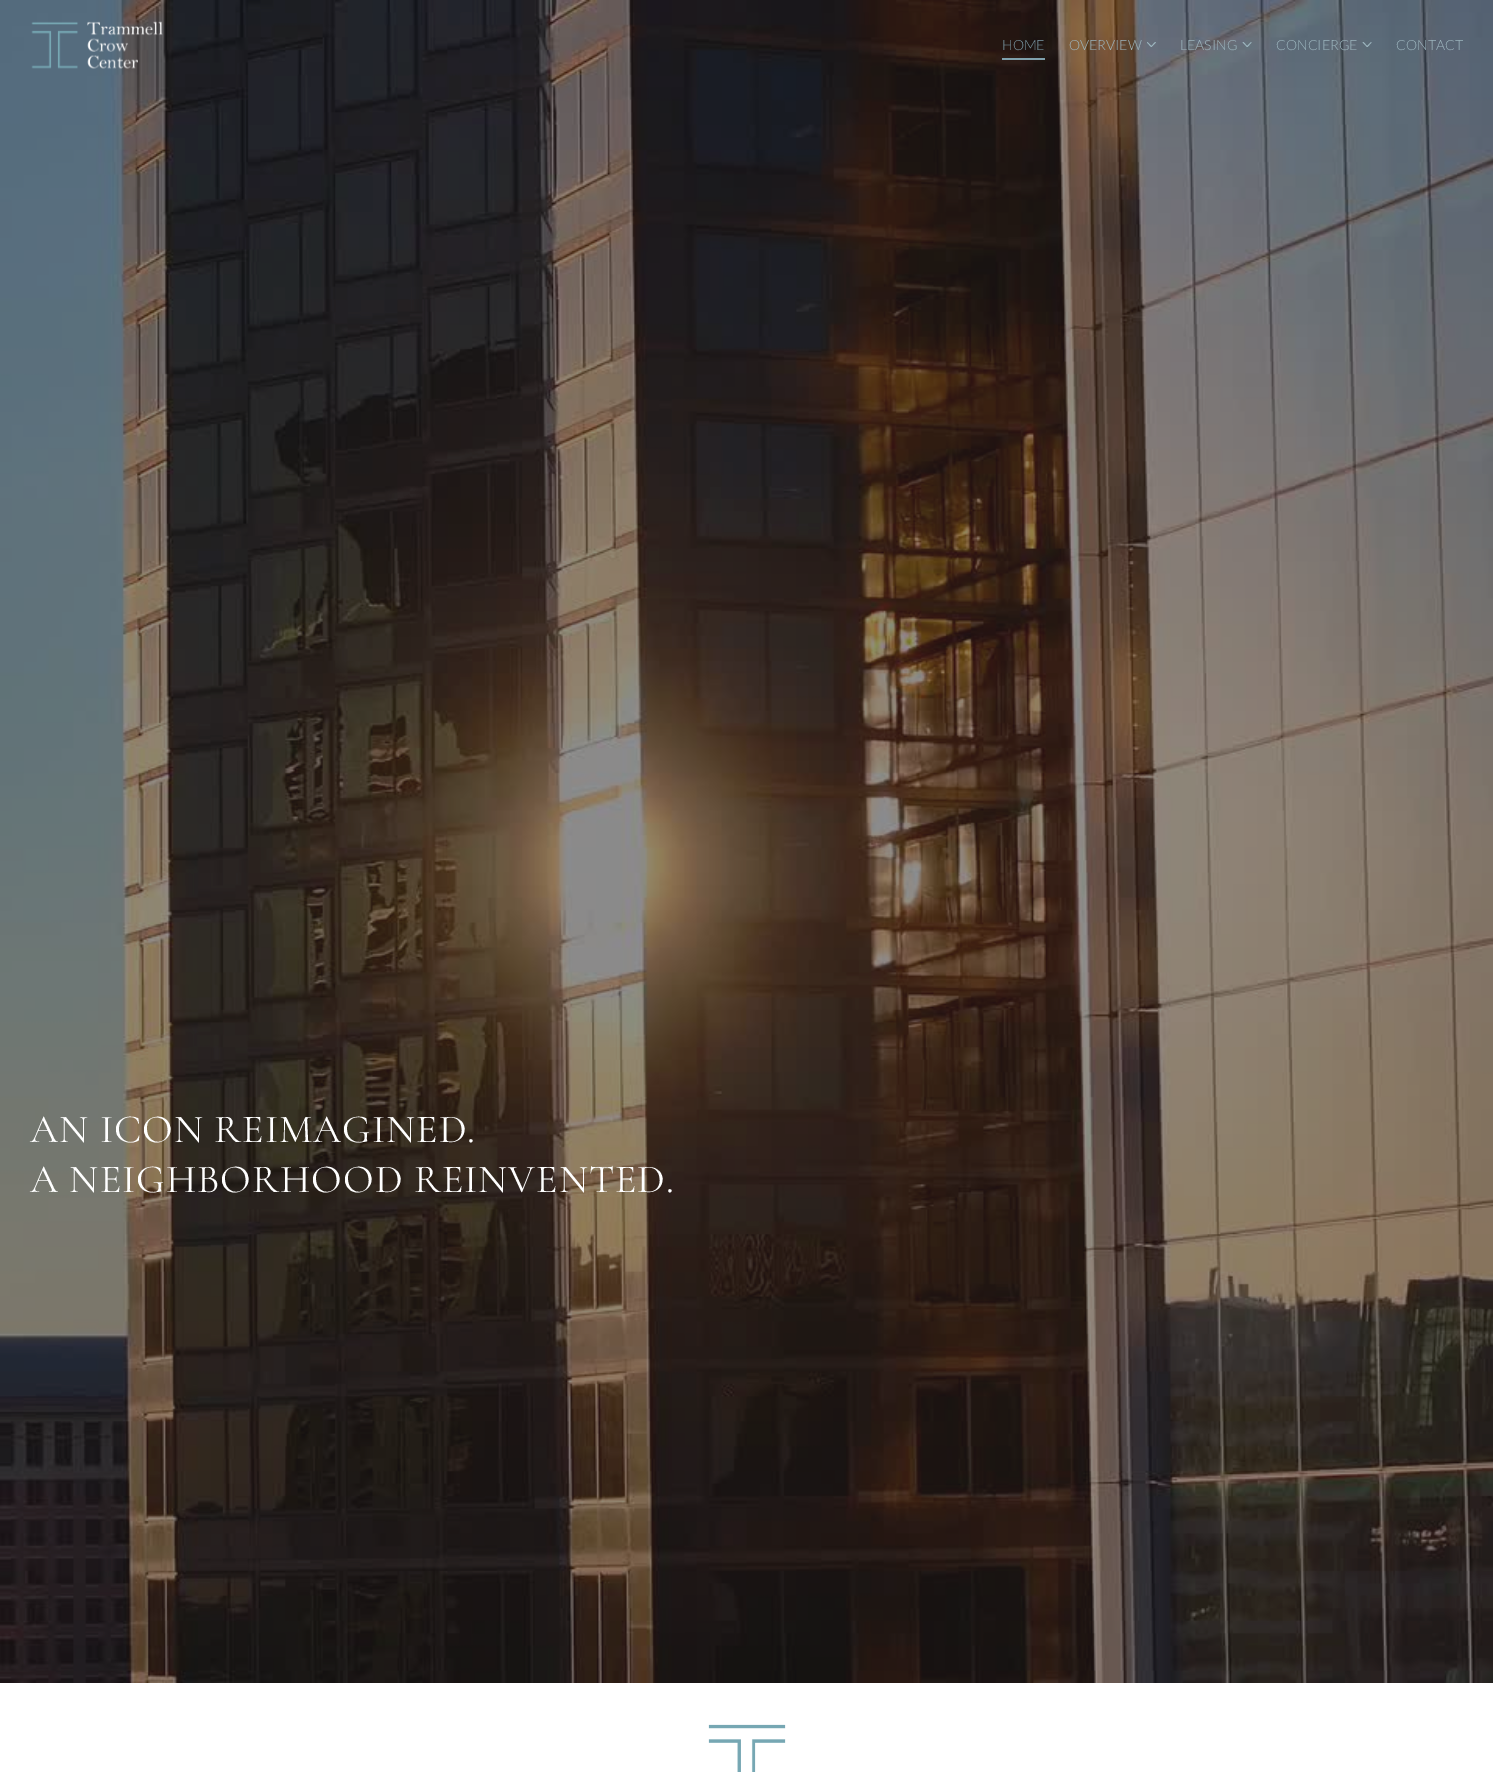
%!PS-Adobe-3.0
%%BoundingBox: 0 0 1493 1772
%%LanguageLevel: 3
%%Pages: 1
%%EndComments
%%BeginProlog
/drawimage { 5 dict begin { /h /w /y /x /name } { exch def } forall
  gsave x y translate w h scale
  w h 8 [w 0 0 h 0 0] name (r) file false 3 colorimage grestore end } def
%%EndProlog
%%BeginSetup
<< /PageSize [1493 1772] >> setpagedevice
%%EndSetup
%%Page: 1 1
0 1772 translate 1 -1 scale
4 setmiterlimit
1 setgray
0 0 1493 1772 rectfill
0.137 setgray
0 0 1493 1683 rectfill
(images/2.raw) 0 0 1493 1683 drawimage
(images/1.raw) 31 21 132 48 drawimage
0.498 0.627 0.675 setrgbcolor
1002 58 43 2 rectfill
0.62 0.718 0.753 setrgbcolor
newpath 1147.5 42 moveto 1152 46.5 lineto 1151 47 lineto 1147 42.5 lineto closepath fill
newpath 1151 46.5 moveto 1155 42 lineto 1156 42.5 lineto 1151.5 47 lineto closepath fill
newpath 1243.5 42 moveto 1247.5 46.5 lineto 1247 47 lineto 1242.5 42.5 lineto closepath fill
newpath 1246.5 46.5 moveto 1251 42 lineto 1251.5 42.5 lineto 1247.5 47 lineto closepath fill
newpath 1363.5 42 moveto 1367.5 46.5 lineto 1367 47 lineto 1362.5 42.5 lineto closepath fill
newpath 1366.5 46.5 moveto 1371 42 lineto 1371.5 42.5 lineto 1367.5 47 lineto closepath fill
(images/3.raw) 708 1724 78 48 drawimage
/Lato-Light [14 0 0 -14 0 0] selectfont
0.498 0.627 0.675 setrgbcolor
1002 50 moveto (HOME) show
0.62 0.718 0.753 setrgbcolor
1069 50 moveto (OVERVIEW) show
1180 50 moveto (LEASING) show
1276 50 moveto (CONCIERGE) show
1396 50 moveto (CONTACT) show
/CormorantGaramond-Regular [40 0 0 -40 0 0] selectfont
1 setgray
30 1142 moveto 1 0 (AN ICON REIMAGINED.) ashow
30 1192 moveto 1 0 (A NEIGHBORHOOD REINVENTED.) ashow
showpage
%%EOF
